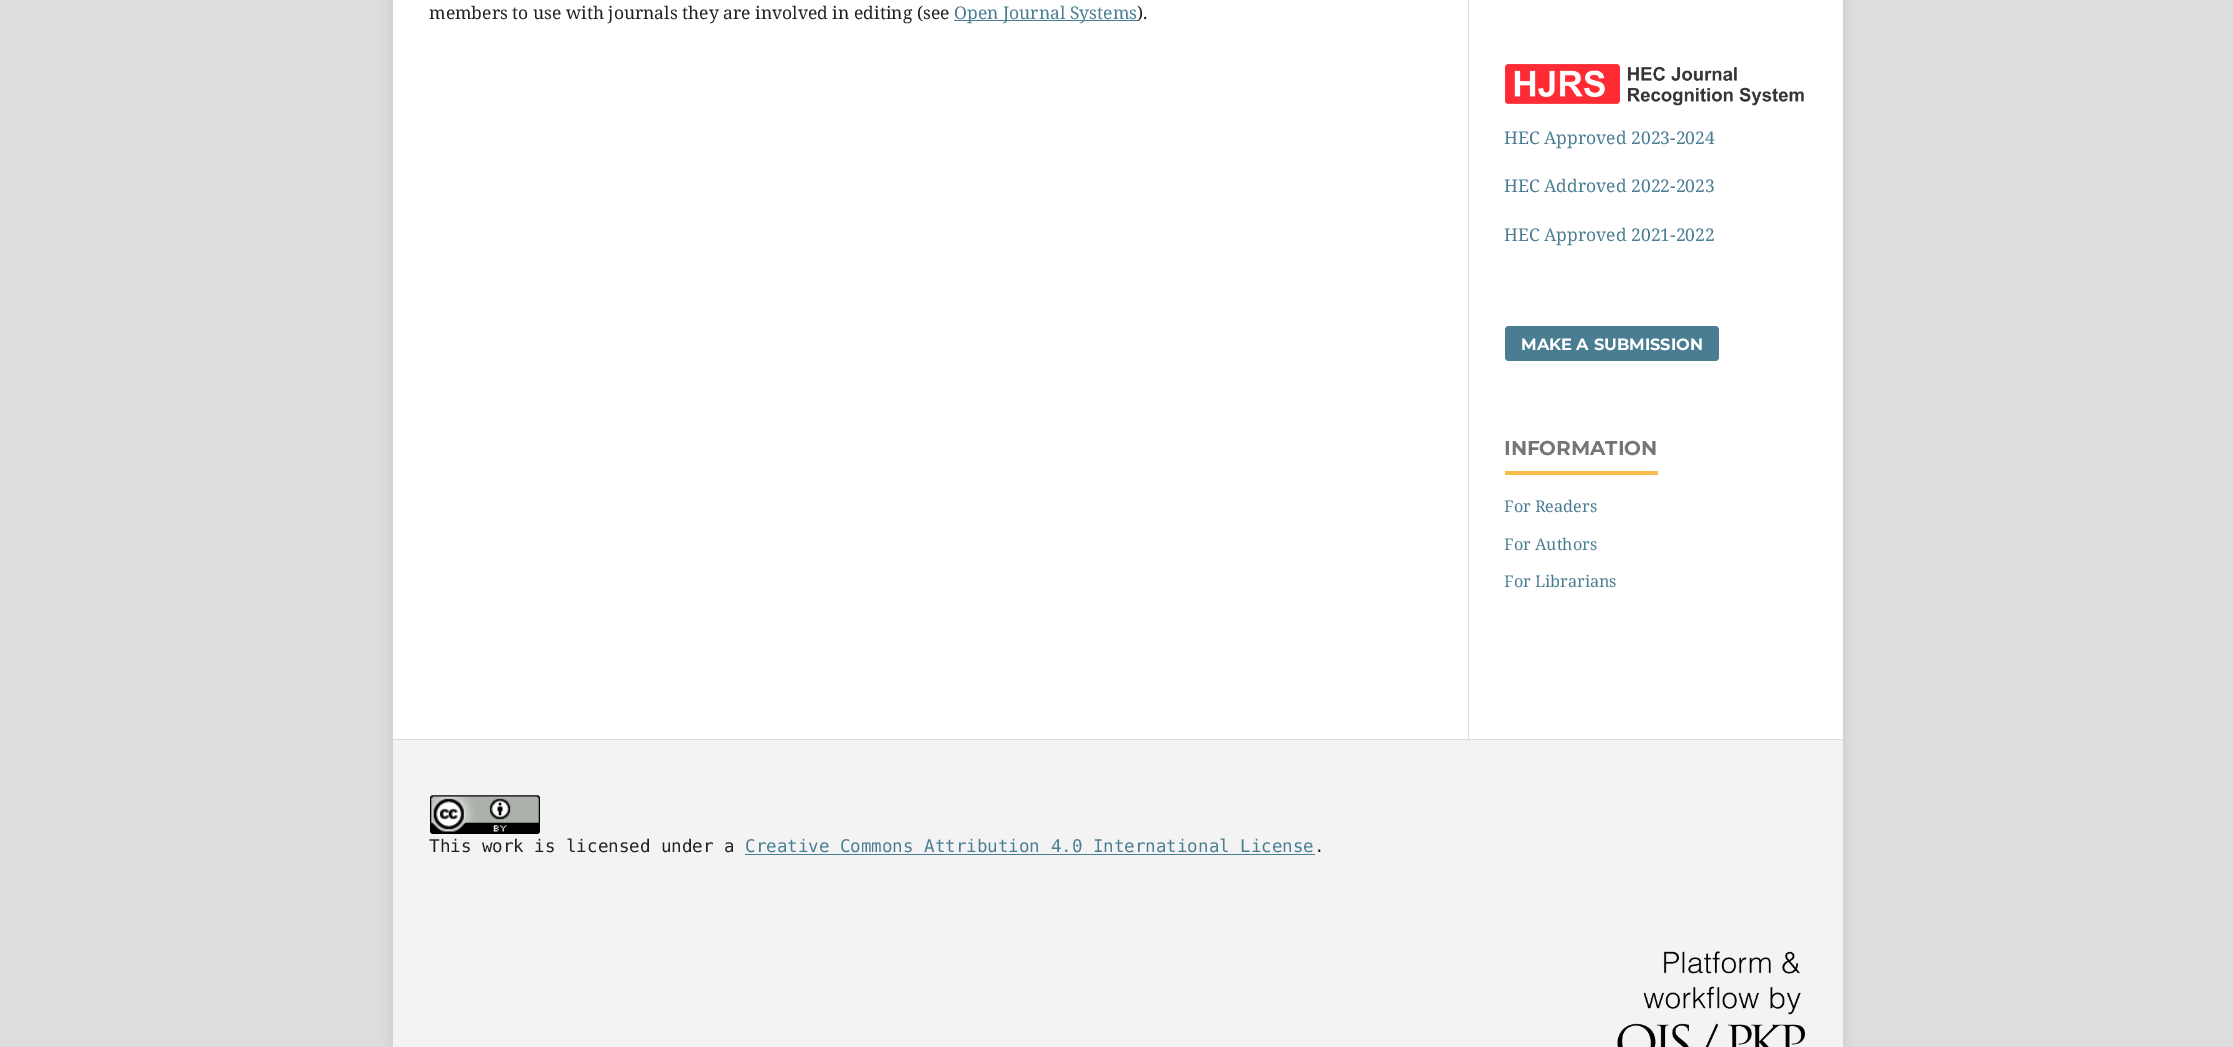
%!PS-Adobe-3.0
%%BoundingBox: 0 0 2233 1047
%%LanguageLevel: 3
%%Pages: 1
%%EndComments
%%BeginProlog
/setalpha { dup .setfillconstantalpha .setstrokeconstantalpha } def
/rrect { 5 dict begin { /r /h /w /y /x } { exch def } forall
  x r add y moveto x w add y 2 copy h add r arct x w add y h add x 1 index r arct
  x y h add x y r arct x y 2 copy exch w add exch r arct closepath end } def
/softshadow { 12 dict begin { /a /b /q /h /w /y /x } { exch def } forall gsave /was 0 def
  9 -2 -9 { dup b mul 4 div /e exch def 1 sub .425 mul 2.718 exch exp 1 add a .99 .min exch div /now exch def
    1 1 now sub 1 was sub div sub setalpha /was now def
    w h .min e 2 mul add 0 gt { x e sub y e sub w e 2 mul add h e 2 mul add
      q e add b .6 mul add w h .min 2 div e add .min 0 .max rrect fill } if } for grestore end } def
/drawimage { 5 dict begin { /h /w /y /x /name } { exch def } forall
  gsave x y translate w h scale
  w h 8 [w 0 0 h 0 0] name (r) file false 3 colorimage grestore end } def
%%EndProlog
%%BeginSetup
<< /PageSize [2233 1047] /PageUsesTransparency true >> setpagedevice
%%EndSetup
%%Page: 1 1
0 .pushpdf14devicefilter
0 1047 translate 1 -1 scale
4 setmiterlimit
0.867 setgray
0 0 2233 1047 rectfill
0 setgray
393 -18 1450 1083 0 6 0.1 softshadow
1 setgray
393 0 1450 739 rectfill
0.294 0.49 0.573 setrgbcolor
954 20 184 1 rectfill
0.867 setgray
1468 0 1 739 rectfill
(images/1.raw) 1505 64 299 42 drawimage
0.294 0.49 0.573 setrgbcolor
1505 326 214 35 4 rrect fill
0.969 0.737 0.29 setrgbcolor
1505 471 153 4 rectfill
0.953 setgray
393 740 1450 307 rectfill
0.867 setgray
393 739 1450 1 rectfill
(images/2.raw) 430 795 110 39 drawimage
0.294 0.49 0.573 setrgbcolor
745 854 570 1 rectfill
(images/3.raw) 1617 951 188 96 drawimage
/NotoSerif-Regular [17.5 0 0 -17.5 0 0] selectfont
0.129 setgray
429 19 moveto (members to use with journals they are involved in editing \(see) show
0.294 0.49 0.573 setrgbcolor
954 19 moveto (Open Journal Systems) show
0.129 setgray
1137 19 moveto (\).) show
0.294 0.49 0.573 setrgbcolor
1504 144 moveto (HEC Approved 2023-2024) show
1504 192 moveto (HEC Addroved 2022-2023) show
1504 241 moveto (HEC Approved 2021-2022) show
/Montserrat-Bold [16.25 0 0 -16.25 0 0] selectfont
1 setgray
1521 350 moveto (MAKE A SUBMISSION) show
/Montserrat-Bold [20 0 0 -20 0 0] selectfont
0.459 setgray
1504 455 moveto (INFORMATION) show
/NotoSerif-Regular [16.25 0 0 -16.25 0 0] selectfont
0.294 0.49 0.573 setrgbcolor
1504 512 moveto (For Readers) show
1504 550 moveto (For Authors) show
1504 587 moveto (For Librarians) show
/DejaVuSansMono-Regular [17.5 0 0 -17.5 0 0] selectfont
0.129 setgray
429 852 moveto (This work is licensed under a) show
0.294 0.49 0.573 setrgbcolor
745 852 moveto (Creative Commons Attribution 4.0 International License) show
0.129 setgray
1314 852 moveto (.) show
.poppdf14devicefilter showpage
%%EOF
